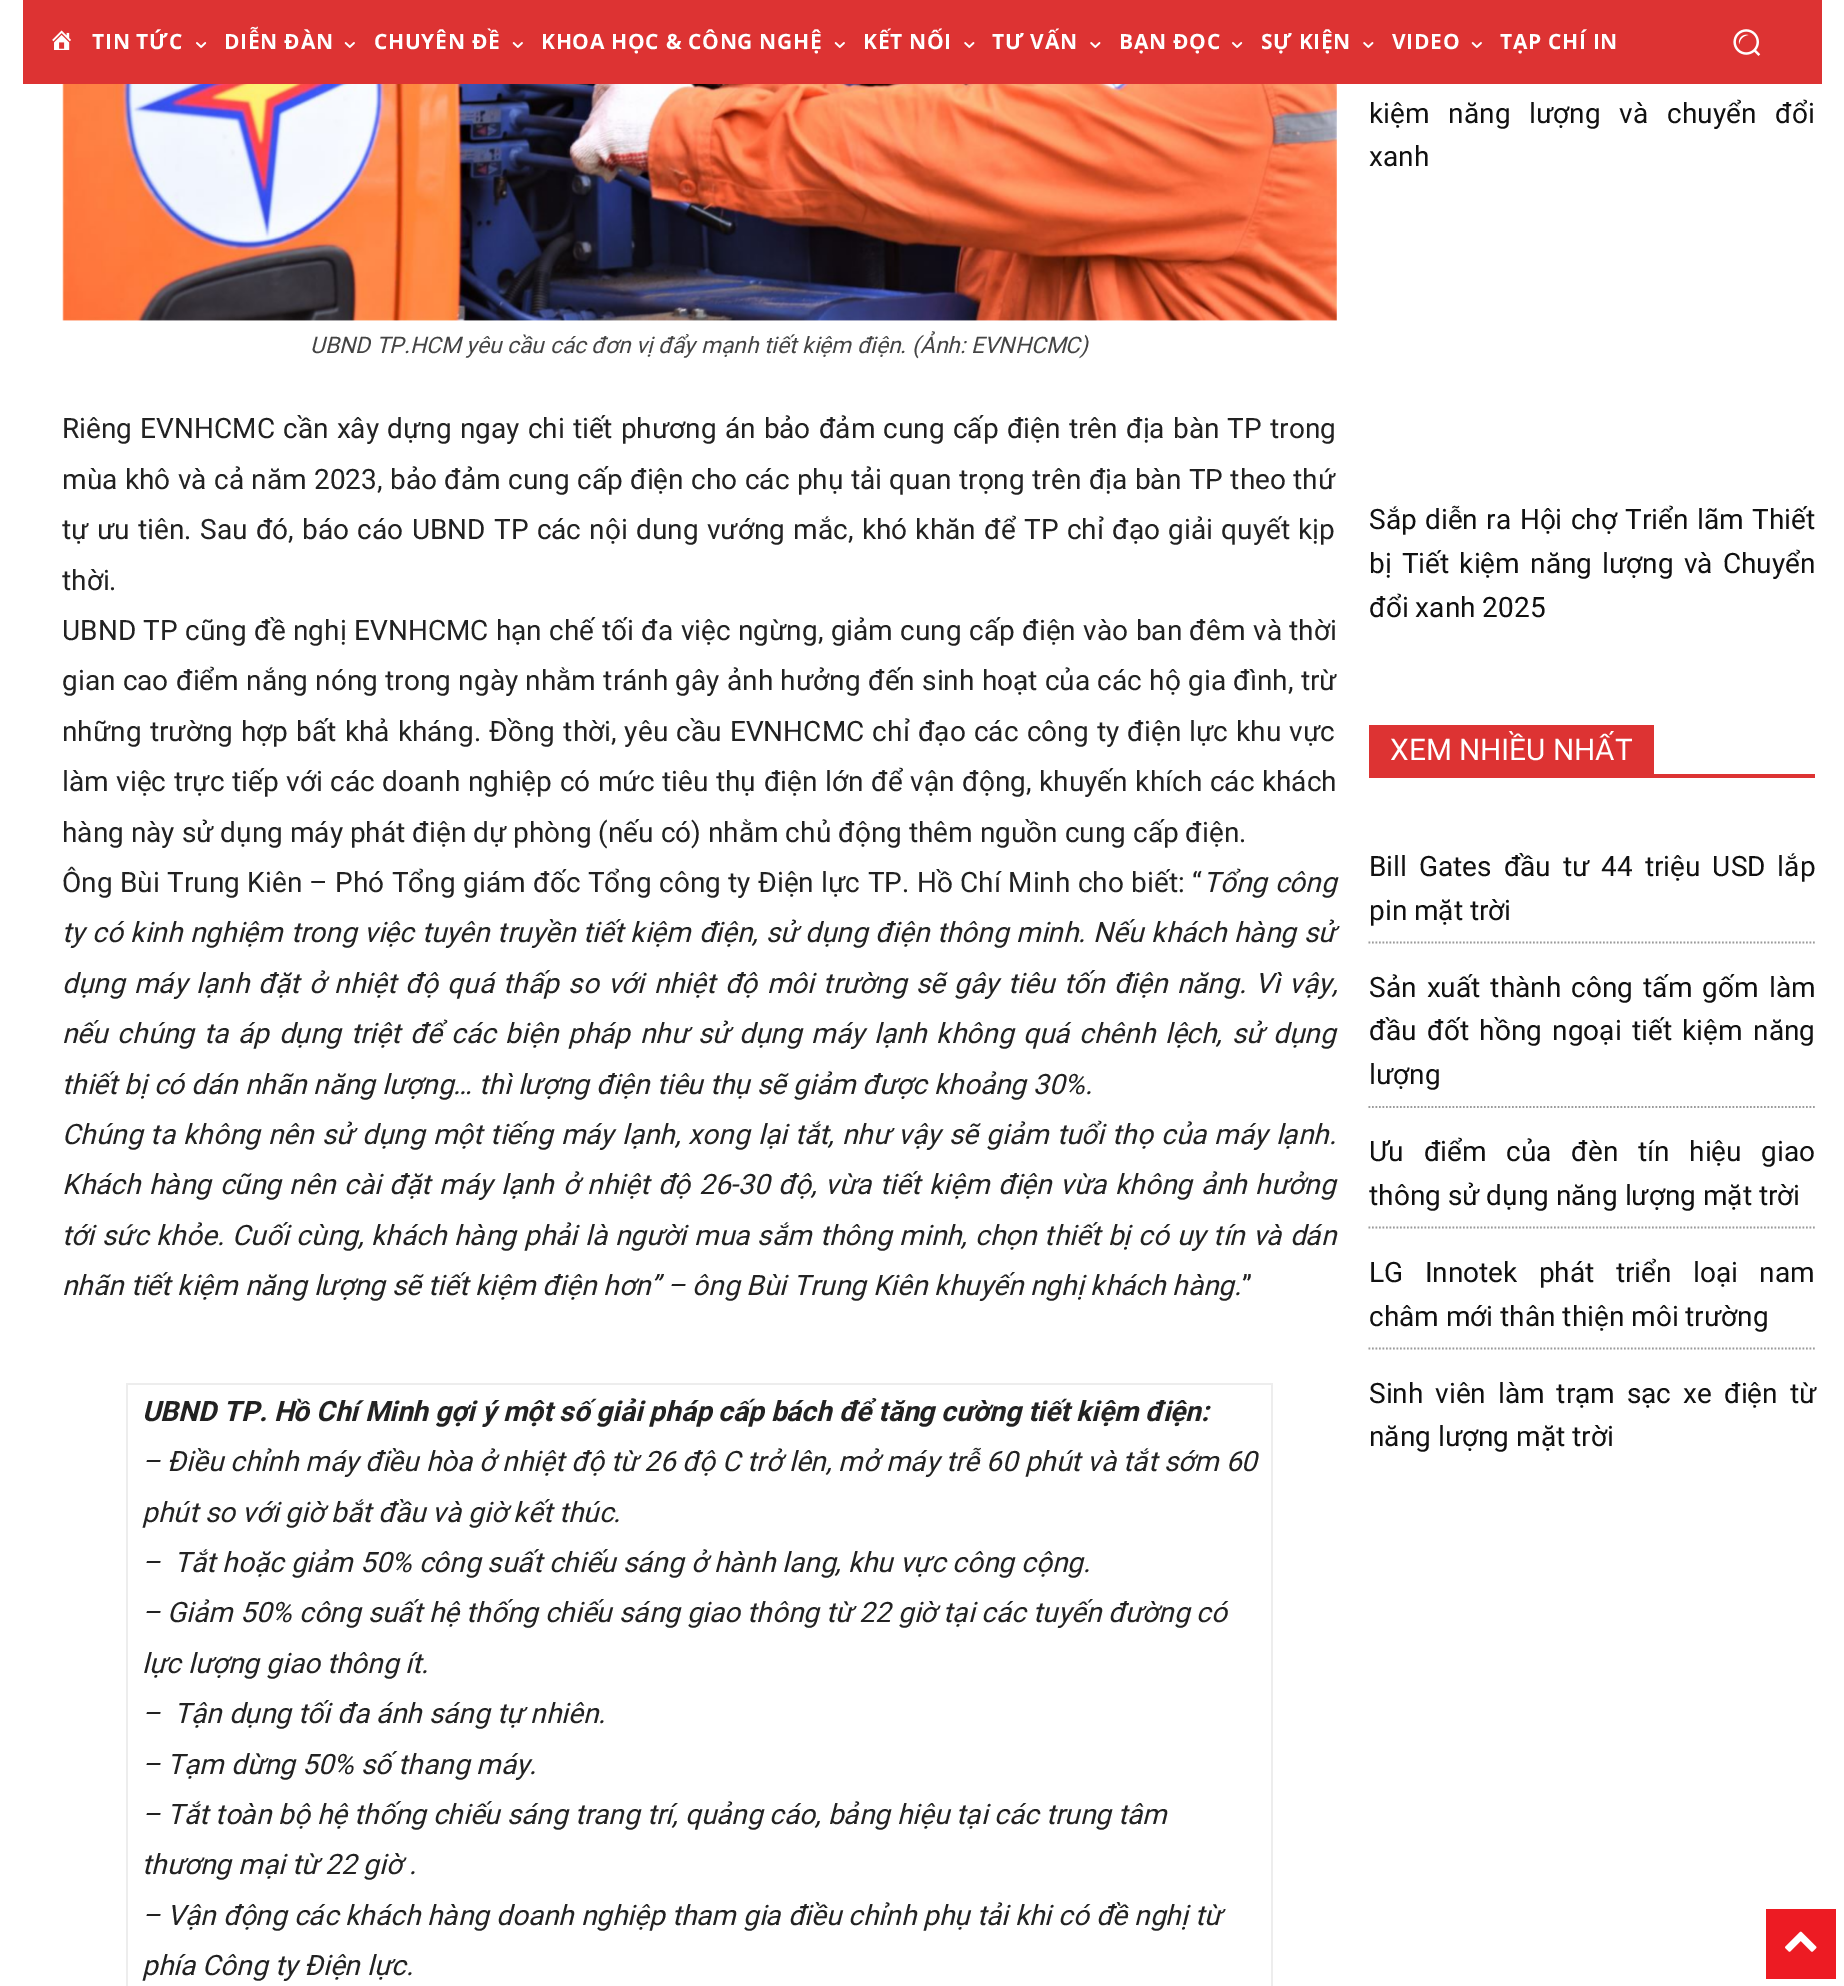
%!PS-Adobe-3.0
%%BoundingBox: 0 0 1844 1986
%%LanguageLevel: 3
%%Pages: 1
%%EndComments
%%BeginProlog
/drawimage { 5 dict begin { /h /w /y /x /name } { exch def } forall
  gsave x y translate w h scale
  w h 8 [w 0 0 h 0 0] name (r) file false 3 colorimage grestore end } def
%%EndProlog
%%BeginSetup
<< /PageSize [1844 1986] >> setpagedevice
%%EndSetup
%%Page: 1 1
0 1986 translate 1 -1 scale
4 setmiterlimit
1 setgray
0 0 1844 1986 rectfill
0.867 0.2 0.2 setrgbcolor
23 0 1799 84 rectfill
(images/1.raw) 52 30 19 20 drawimage
(images/2.raw) 196 42 11 6 drawimage
(images/3.raw) 344 42 11 6 drawimage
(images/3.raw) 512 42 11 6 drawimage
(images/3.raw) 834 42 11 6 drawimage
(images/4.raw) 964 42 11 6 drawimage
(images/4.raw) 1090 42 11 6 drawimage
(images/2.raw) 1232 42 11 6 drawimage
(images/4.raw) 1363 42 11 6 drawimage
(images/3.raw) 1471 42 11 6 drawimage
(images/5.raw) 1733 29 28 27 drawimage
(images/6.raw) 62 84 1275 237 drawimage
0.929 setgray
126 1383 1146 2 rectfill
1271 1383 2 603 rectfill
126 1383 2 603 rectfill
0.867 0.2 0.2 setrgbcolor
1369 774 446 4 rectfill
1369 725 285 49 rectfill
0.608 setgray
1.8 setlinewidth
[1.75 1.75] 0 setdash
newpath 1368.5 942.5 moveto 1815 942.5 lineto stroke
newpath 1368.5 1107 moveto 1815 1107 lineto stroke
newpath 1368.5 1227.5 moveto 1815 1227.5 lineto stroke
newpath 1368.5 1348.5 moveto 1815 1348.5 lineto stroke
0.929 0.106 0.137 setrgbcolor
1766 1909 70 70 rectfill
(images/7.raw) 1785 1931 32 21 drawimage
/OpenSans-Bold [21 0 0 -21 0 0] selectfont
1 setgray
92 49 moveto 0.7 0 (TIN TỨC) ashow
224 49 moveto 0.7 0 (DIỄN ĐÀN) ashow
374 49 moveto 0.7 0 (CHUYÊN ĐỀ) ashow
541 49 moveto 0.7 0 (KHOA HỌC & CÔNG NGHỆ) ashow
863 49 moveto 0.7 0 (KẾT NỐI) ashow
992 49 moveto 0.7 0 (TƯ VẤN) ashow
1119 49 moveto 0.7 0 (BẠN ĐỌC) ashow
1261 49 moveto 0.7 0 (SỰ KIỆN) ashow
1392 49 moveto 0.7 0 (VIDEO) ashow
1500 49 moveto 0.7 0 (TẠP CHÍ IN) ashow
/Roboto-Italic [22.75 0 0 -22.75 0 0] selectfont
0.267 setgray
310 353 moveto (UBND TP.HCM yêu cầu các đơn vị đẩy mạnh tiết kiệm điện. \(Ảnh: EVNHCMC\)) show
/Roboto-Regular [28 0 0 -28 0 0] selectfont
0.133 setgray
62 438 moveto 1.25 0 32 (Riêng EVNHCMC cần xây dựng ngay chi tiết phương án bảo đảm cung cấp điện trên địa bàn TP trong) widthshow
62 489 moveto 0.5 0 32 (mùa khô và cả năm 2023, bảo đảm cung cấp điện cho các phụ tải quan trọng trên địa bàn TP theo thứ) widthshow
62 539 moveto 1.4 0 32 (tự ưu tiên. Sau đó, báo cáo UBND TP các nội dung vướng mắc, khó khăn để TP chỉ đạo giải quyết kịp) widthshow
62 590 moveto (thời.) show
62 640 moveto 0.5 0 32 (UBND TP cũng đề nghị EVNHCMC hạn chế tối đa việc ngừng, giảm cung cấp điện vào ban đêm và thời) widthshow
62 690 moveto 0.4 0 32 (gian cao điểm nắng nóng trong ngày nhằm tránh gây ảnh hưởng đến sinh hoạt của các hộ gia đình, trừ) widthshow
62 741 moveto 1.25 0 32 (những trường hợp bất khả kháng. Đồng thời, yêu cầu EVNHCMC chỉ đạo các công ty điện lực khu vực) widthshow
62 791 moveto 0.7 0 32 (làm việc trực tiếp với các doanh nghiệp có mức tiêu thụ điện lớn để vận động, khuyến khích các khách) widthshow
62 842 moveto (hàng này sử dụng máy phát điện dự phòng \(nếu có\) nhằm chủ động thêm nguồn cung cấp điện.) show
62 892 moveto 0.5 0 32 (Ông Bùi Trung Kiên – Phó Tổng giám đốc Tổng công ty Điện lực TP. Hồ Chí Minh cho biết: “) widthshow
/Roboto-Italic [28 0 0 -28 0 0] selectfont
1203 892 moveto 1 0 32 (Tổng công) widthshow
62 942 moveto 0.75 0 32 (ty có kinh nghiệm trong việc tuyên truyền tiết kiệm điện, sử dụng điện thông minh. Nếu khách hàng sử) widthshow
62 993 moveto 2.4 0 32 (dụng máy lạnh đặt ở nhiệt độ quá thấp so với nhiệt độ môi trường sẽ gây tiêu tốn điện năng. Vì vậy,) widthshow
62 1043 moveto 2.75 0 32 (nếu chúng ta áp dụng triệt để các biện pháp như sử dụng máy lạnh không quá chênh lệch, sử dụng) widthshow
62 1094 moveto (thiết bị có dán nhãn năng lượng… thì lượng điện tiêu thụ sẽ giảm được khoảng 30%.) show
62 1144 moveto 1.25 0 32 (Chúng ta không nên sử dụng một tiếng máy lạnh, xong lại tắt, như vậy sẽ giảm tuổi thọ của máy lạnh.) widthshow
62 1194 moveto 1.75 0 32 (Khách hàng cũng nên cài đặt máy lạnh ở nhiệt độ 26-30 độ, vừa tiết kiệm điện vừa không ảnh hưởng) widthshow
62 1245 moveto 1 0 32 (tới sức khỏe. Cuối cùng, khách hàng phải là người mua sắm thông minh, chọn thiết bị có uy tín và dán) widthshow
62 1295 moveto (nhãn tiết kiệm năng lượng sẽ tiết kiệm điện hơn” – ông Bùi Trung Kiên khuyến nghị khách hàng.) show
/Roboto-Regular [28 0 0 -28 0 0] selectfont
1242 1295 moveto (”) show
/Roboto-BoldItalic [28 0 0 -28 0 0] selectfont
142 1421 moveto (UBND TP. Hồ Chí Minh gợi ý một số giải pháp cấp bách để tăng cường tiết kiệm điện:) show
/Roboto-Italic [28 0 0 -28 0 0] selectfont
142 1471 moveto (– Điều chỉnh máy điều hòa ở nhiệt độ từ 26 độ C trở lên, mở máy trễ 60 phút và tắt sớm 60) show
142 1522 moveto (phút so với giờ bắt đầu và giờ kết thúc.) show
142 1572 moveto (–  Tắt hoặc giảm 50% công suất chiếu sáng ở hành lang, khu vực công cộng.) show
142 1622 moveto (– Giảm 50% công suất hệ thống chiếu sáng giao thông từ 22 giờ tại các tuyến đường có) show
142 1673 moveto (lực lượng giao thông ít.) show
142 1723 moveto (–  Tận dụng tối đa ánh sáng tự nhiên.) show
142 1774 moveto (– Tạm dừng 50% số thang máy.) show
142 1824 moveto (– Tắt toàn bộ hệ thống chiếu sáng trang trí, quảng cáo, bảng hiệu tại các trung tâm) show
142 1874 moveto (thương mại từ 22 giờ .) show
142 1925 moveto (– Vận động các khách hàng doanh nghiệp tham gia điều chỉnh phụ tải khi có đề nghị từ) show
142 1975 moveto (phía Công ty Điện lực.) show
/Roboto-Regular [28 0 0 -28 0 0] selectfont
0.067 setgray
1369 123 moveto 12 0 32 (kiệm năng lượng và chuyển đổi) widthshow
1369 166 moveto (xanh) show
1369 529 moveto 1.5 0 32 (Sắp diễn ra Hội chợ Triển lãm Thiết) widthshow
1369 573 moveto 3.25 0 32 (bị Tiết kiệm năng lượng và Chuyển) widthshow
1369 617 moveto (đổi xanh 2025) show
/Roboto-Regular [29.75 0 0 -29.75 0 0] selectfont
1 setgray
1390 760 moveto (XEM NHIỀU NHẤT) show
/Roboto-Regular [28 0 0 -28 0 0] selectfont
0.067 setgray
1369 876 moveto 5 0 32 (Bill Gates đầu tư 44 triệu USD lắp) widthshow
1369 920 moveto (pin mặt trời) show
1369 997 moveto 3.25 0 32 (Sản xuất thành công tấm gốm làm) widthshow
1369 1040 moveto 3.5 0 32 (đầu đốt hồng ngoại tiết kiệm năng) widthshow
1369 1084 moveto (lượng) show
1369 1161 moveto 12.75 0 32 (Ưu điểm của đèn tín hiệu giao) widthshow
1369 1205 moveto (thông sử dụng năng lượng mặt trời) show
1369 1282 moveto 14.5 0 32 (LG Innotek phát triển loại nam) widthshow
1369 1326 moveto (châm mới thân thiện môi trường) show
1369 1403 moveto 5 0 32 (Sinh viên làm trạm sạc xe điện từ) widthshow
1369 1446 moveto (năng lượng mặt trời) show
showpage
%%EOF
